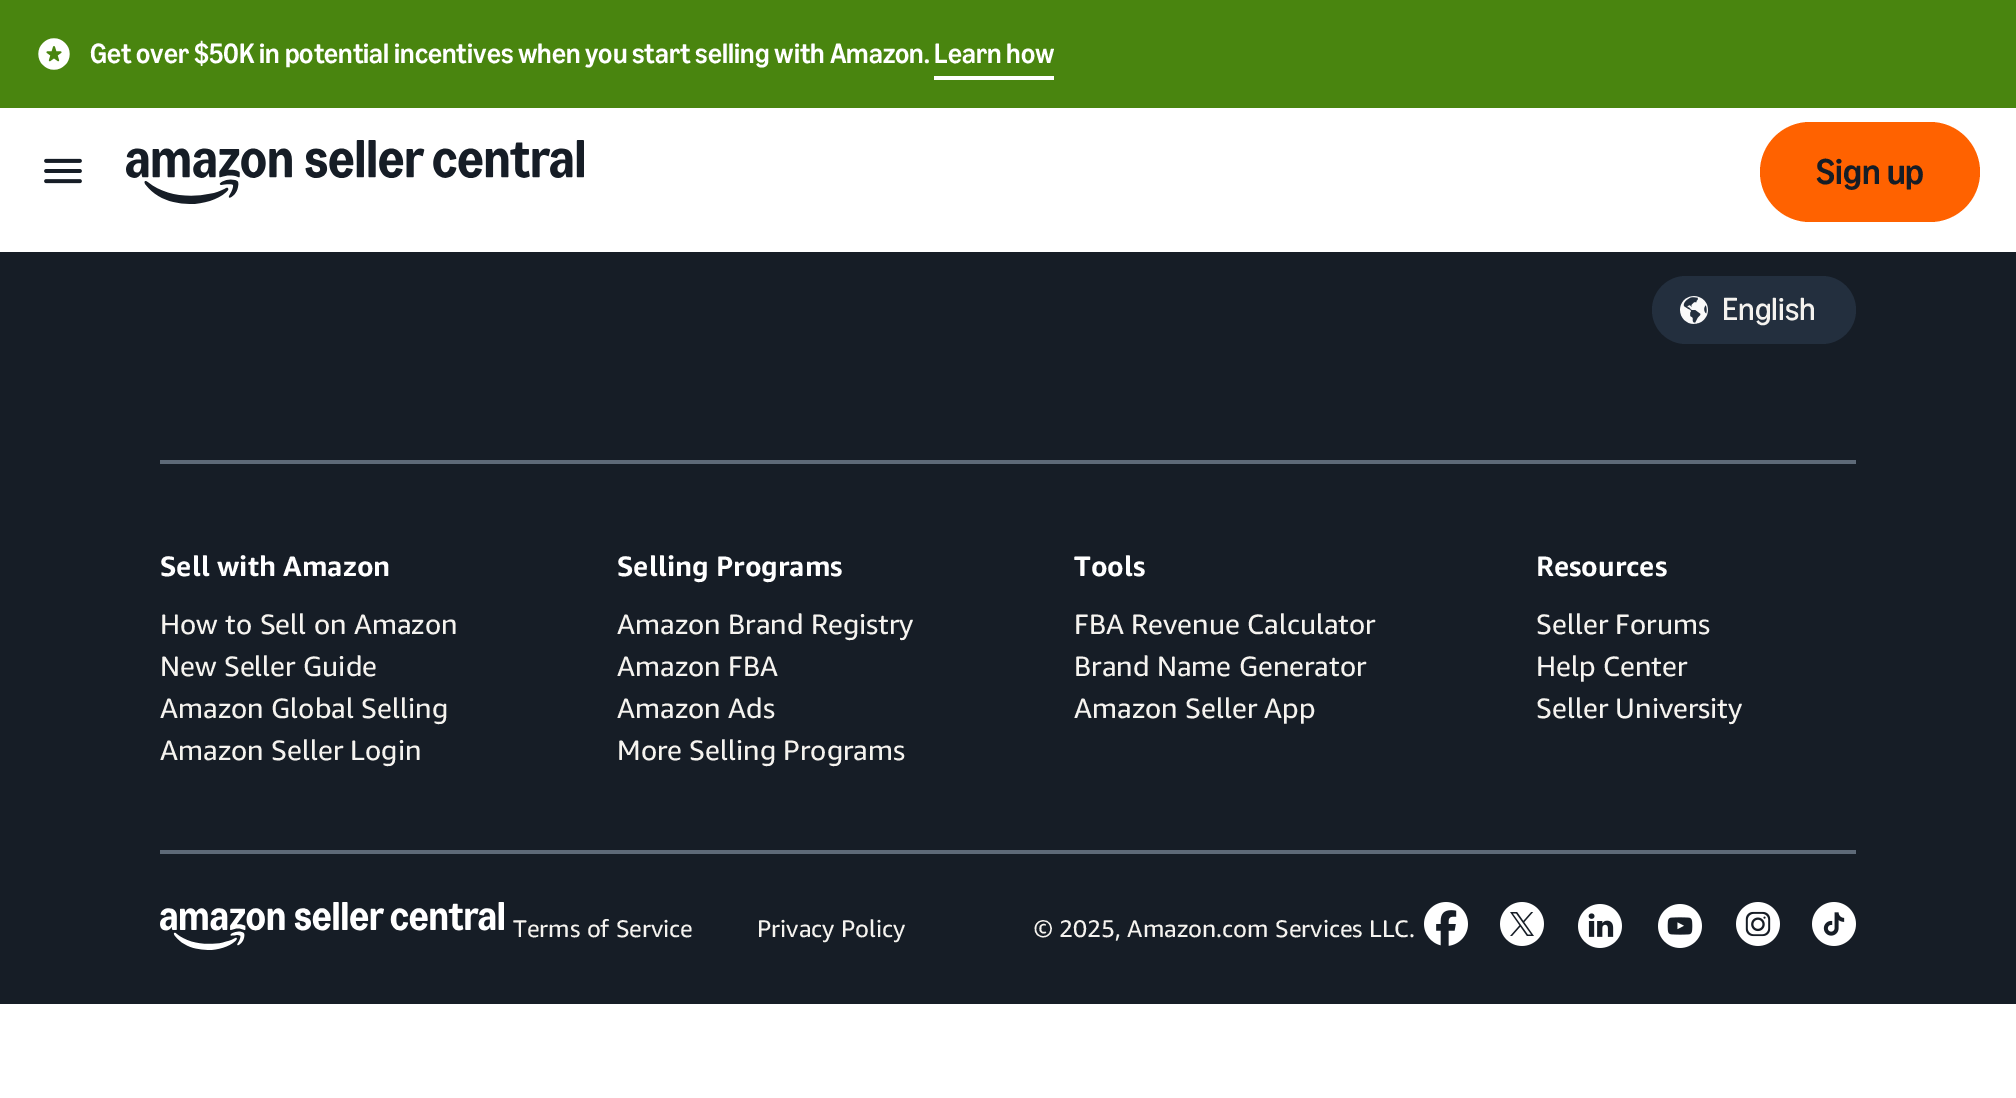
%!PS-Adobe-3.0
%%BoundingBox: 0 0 2016 1098
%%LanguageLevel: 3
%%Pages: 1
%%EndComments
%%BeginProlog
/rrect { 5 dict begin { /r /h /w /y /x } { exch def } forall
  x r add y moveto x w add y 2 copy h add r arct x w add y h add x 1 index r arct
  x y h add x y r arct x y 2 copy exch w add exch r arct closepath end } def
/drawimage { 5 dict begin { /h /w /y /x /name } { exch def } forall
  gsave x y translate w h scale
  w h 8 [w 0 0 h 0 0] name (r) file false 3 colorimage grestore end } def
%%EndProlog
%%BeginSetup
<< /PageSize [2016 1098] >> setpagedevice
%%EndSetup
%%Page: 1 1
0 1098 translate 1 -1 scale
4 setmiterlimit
1 setgray
0 0 2016 1098 rectfill
0.286 0.522 0.059 setrgbcolor
0 0 2016 108 rectfill
(images/1.raw) 38 38 32 32 drawimage
1 setgray
934 76 120 4 rectfill
(images/2.raw) 44 158 38 26 drawimage
(images/3.raw) 126 140 458 64 drawimage
1 0.384 0 setrgbcolor
1760 122 220 100 50 rrect fill
0.086 0.114 0.149 setrgbcolor
0 252 2016 752 rectfill
0.137 0.184 0.243 setrgbcolor
1652 276 204 68 34 rrect fill
(images/4.raw) 1680 296 28 28 drawimage
0.369 0.416 0.471 setrgbcolor
160 460 1696 4 rectfill
160 850 1696 4 rectfill
(images/5.raw) 160 902 344 48 drawimage
(images/6.raw) 1424 902 44 44 drawimage
(images/7.raw) 1500 902 44 44 drawimage
(images/8.raw) 1578 904 44 44 drawimage
(images/9.raw) 1658 904 44 44 drawimage
(images/10.raw) 1736 902 44 44 drawimage
(images/11.raw) 1812 902 44 44 drawimage
/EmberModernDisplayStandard-Medium [28 0 0 -28 0 0] selectfont
1 setgray
90 63 moveto (Get over $50K in potential incentives when you start selling with Amazon. Learn how) show
/EmberModernDisplayStandard-Medium [36 0 0 -36 0 0] selectfont
0.086 0.114 0.149 setrgbcolor
1816 184 moveto (Sign up) show
/EmberModernDisplayStandard-Regular [32 0 0 -32 0 0] selectfont
0.961 0.953 0.937 setrgbcolor
1722 320 moveto (English) show
/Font-Bold [28 0 0 -28 0 0] selectfont
1 setgray
160 576 moveto (Sell with Amazon) show
/Font-Regular [28 0 0 -28 0 0] selectfont
0.961 0.953 0.937 setrgbcolor
160 634 moveto (How to Sell on Amazon) show
160 676 moveto (New Seller Guide) show
160 718 moveto (Amazon Global Selling) show
160 760 moveto (Amazon Seller Login) show
/Font-Bold [28 0 0 -28 0 0] selectfont
1 setgray
617 576 moveto (Selling Programs) show
/Font-Regular [28 0 0 -28 0 0] selectfont
0.961 0.953 0.937 setrgbcolor
617 634 moveto (Amazon Brand Registry) show
617 676 moveto (Amazon FBA) show
617 718 moveto (Amazon Ads) show
617 760 moveto (More Selling Programs) show
/Font-Bold [28 0 0 -28 0 0] selectfont
1 setgray
1074 576 moveto (Tools) show
/Font-Regular [28 0 0 -28 0 0] selectfont
0.961 0.953 0.937 setrgbcolor
1074 634 moveto (FBA Revenue Calculator) show
1074 676 moveto (Brand Name Generator) show
1074 718 moveto (Amazon Seller App) show
/Font-Bold [28 0 0 -28 0 0] selectfont
1 setgray
1536 576 moveto (Resources) show
/Font-Regular [28 0 0 -28 0 0] selectfont
0.961 0.953 0.937 setrgbcolor
1536 634 moveto (Seller Forums) show
1536 676 moveto (Help Center) show
1536 718 moveto (Seller University) show
/Font-Regular [24 0 0 -24 0 0] selectfont
513 937 moveto (Terms of Service) show
757 937 moveto (Privacy Policy) show
1034 937 moveto (© 2025, Amazon.com Services LLC.) show
showpage
%%EOF
